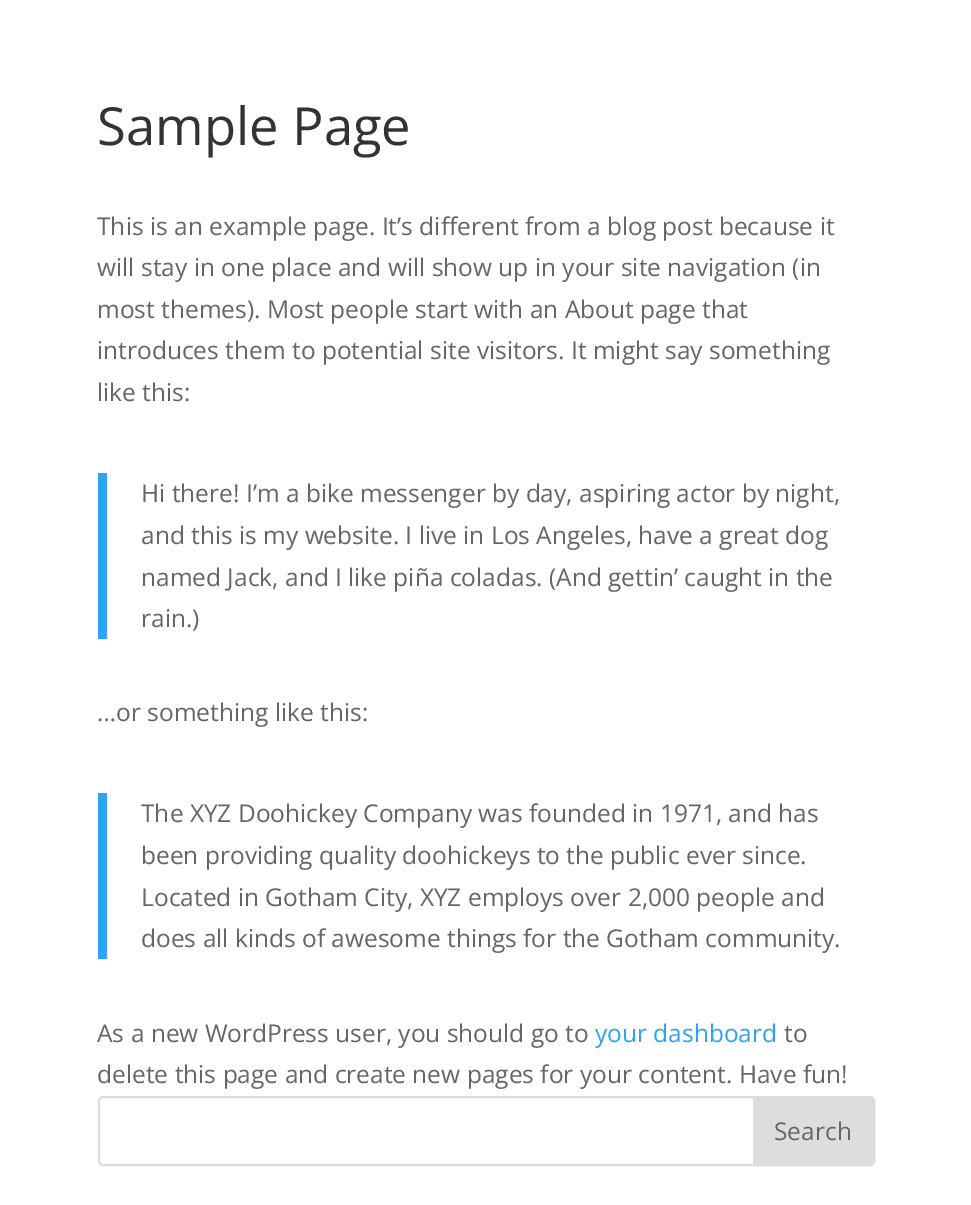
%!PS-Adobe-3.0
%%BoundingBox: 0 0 971 1205
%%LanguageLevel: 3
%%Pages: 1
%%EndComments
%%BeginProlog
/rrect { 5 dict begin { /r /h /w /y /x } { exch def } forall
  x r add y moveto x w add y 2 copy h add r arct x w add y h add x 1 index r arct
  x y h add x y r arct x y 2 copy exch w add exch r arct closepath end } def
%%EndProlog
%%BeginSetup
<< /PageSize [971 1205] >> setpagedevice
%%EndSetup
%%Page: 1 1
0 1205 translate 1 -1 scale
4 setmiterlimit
1 setgray
0 0 971 1205 rectfill
0.18 0.639 0.949 setrgbcolor
98 473 9 166 rectfill
98 793 9 166 rectfill
0.867 setgray
2 setlinewidth
99 1097 775 68 4 rrect stroke
newpath 754 1097 moveto 870 1097 lineto 872 1097 874 1099 874 1101 curveto 874 1161 lineto 874 1163 872 1165 870 1165 curveto 754 1165 lineto closepath gsave fill grestore
stroke
/OpenSans-Regular [52.5 0 0 -52.5 0 0] selectfont
0.2 setgray
97 145 moveto (Sample Page) show
/OpenSans-Regular [24.5 0 0 -24.5 0 0] selectfont
0.4 setgray
97 235 moveto (This is an example page. It’s different from a blog post because it) show
97 276 moveto (will stay in one place and will show up in your site navigation \(in) show
97 318 moveto (most themes\). Most people start with an About page that) show
97 359 moveto (introduces them to potential site visitors. It might say something) show
97 401 moveto (like this:) show
141 502 moveto (Hi there! I’m a bike messenger by day, aspiring actor by night,) show
141 544 moveto (and this is my website. I live in Los Angeles, have a great dog) show
141 586 moveto (named Jack, and I like piña coladas. \(And gettin’ caught in the) show
141 627 moveto (rain.\)) show
97 721 moveto (…or something like this:) show
141 822 moveto (The XYZ Doohickey Company was founded in 1971, and has) show
141 864 moveto (been providing quality doohickeys to the public ever since.) show
141 906 moveto (Located in Gotham City, XYZ employs over 2,000 people and) show
141 947 moveto (does all kinds of awesome things for the Gotham community.) show
97 1042 moveto (As a new WordPress user, you should go to) show
0.18 0.639 0.949 setrgbcolor
595 1042 moveto (your dashboard) show
0.4 setgray
784 1042 moveto (to) show
97 1083 moveto (delete this page and create new pages for your content. Have fun!) show
774 1140 moveto (Search) show
showpage
%%EOF
